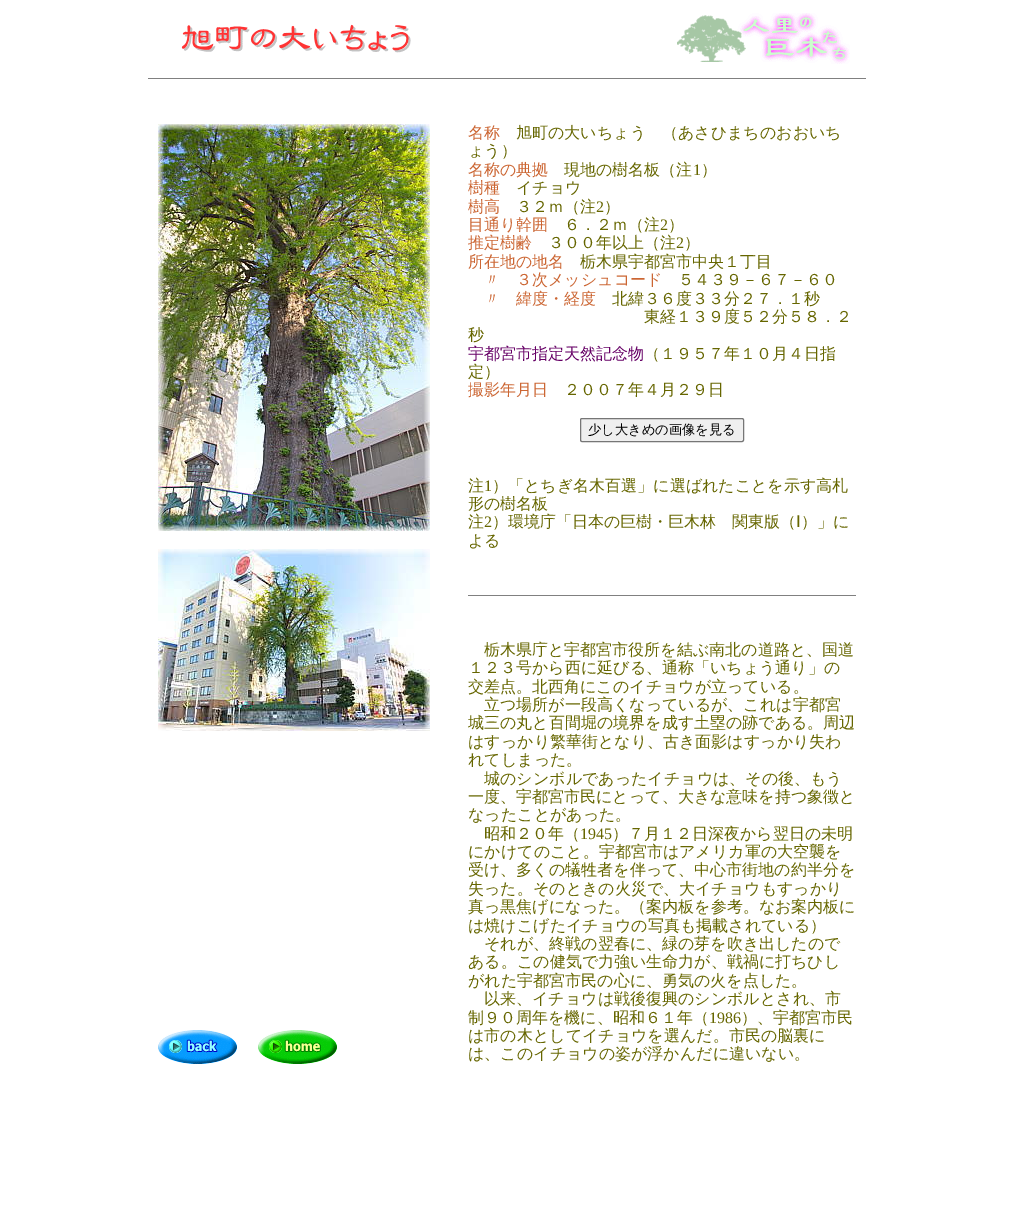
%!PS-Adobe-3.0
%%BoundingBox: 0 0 1014 1213
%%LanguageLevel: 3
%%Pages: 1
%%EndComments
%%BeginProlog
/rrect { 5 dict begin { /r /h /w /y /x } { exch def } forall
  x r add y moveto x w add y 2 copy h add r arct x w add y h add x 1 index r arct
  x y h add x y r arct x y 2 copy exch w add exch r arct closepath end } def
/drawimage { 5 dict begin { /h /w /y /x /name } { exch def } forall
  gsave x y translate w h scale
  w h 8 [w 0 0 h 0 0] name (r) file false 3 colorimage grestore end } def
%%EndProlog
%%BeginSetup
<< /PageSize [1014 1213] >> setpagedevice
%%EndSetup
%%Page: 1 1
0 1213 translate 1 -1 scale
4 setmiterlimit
1 setgray
0 0 1014 1213 rectfill
(images/1.raw) 181 24 230 29 drawimage
(images/2.raw) 677 13 173 51 drawimage
0.502 setgray
148 78 718 1 rectfill
(images/3.raw) 158 1030 79 34 drawimage
(images/4.raw) 258 1030 79 34 drawimage
(images/5.raw) 158 124 272 407 drawimage
(images/6.raw) 158 549 272 182 drawimage
0.937 setgray
580.5 418.5 163 23 1.5 rrect gsave fill grestore
0.463 setgray
stroke
0.502 setgray
468 595 388 1 rectfill
/WenQuanYiZenHei-Medium [16 0 0 -16 0 0] selectfont
0.8 0.4 0.2 setrgbcolor
468 138 moveto (名称) show
0.4 0.4 0 setrgbcolor
516 138 moveto (旭町の大いちょう　（あさひまちのおおいち) show
468 156 moveto (ょう）) show
0.8 0.4 0.2 setrgbcolor
468 175 moveto (名称の典拠) show
0.4 0.4 0 setrgbcolor
564 175 moveto (現地の樹名板（注) show
/LiberationSerif-Regular [16 0 0 -16 0 0] selectfont
693 175 moveto (1) show
/WenQuanYiZenHei-Medium [16 0 0 -16 0 0] selectfont
701 175 moveto (）) show
0.8 0.4 0.2 setrgbcolor
468 193 moveto (樹種) show
0.4 0.4 0 setrgbcolor
516 193 moveto (イチョウ) show
0.8 0.4 0.2 setrgbcolor
468 212 moveto (樹高) show
0.4 0.4 0 setrgbcolor
516 212 moveto (３２ｍ（注) show
/LiberationSerif-Regular [16 0 0 -16 0 0] selectfont
596 212 moveto (2) show
/WenQuanYiZenHei-Medium [16 0 0 -16 0 0] selectfont
604 212 moveto (）) show
0.8 0.4 0.2 setrgbcolor
468 230 moveto (目通り幹囲) show
0.4 0.4 0 setrgbcolor
564 230 moveto (６．２ｍ（注) show
/LiberationSerif-Regular [16 0 0 -16 0 0] selectfont
660 230 moveto (2) show
/WenQuanYiZenHei-Medium [16 0 0 -16 0 0] selectfont
668 230 moveto (）) show
0.8 0.4 0.2 setrgbcolor
468 248 moveto (推定樹齢) show
0.4 0.4 0 setrgbcolor
548 248 moveto (３００年以上（注) show
/LiberationSerif-Regular [16 0 0 -16 0 0] selectfont
676 248 moveto (2) show
/WenQuanYiZenHei-Medium [16 0 0 -16 0 0] selectfont
684 248 moveto (）) show
0.8 0.4 0.2 setrgbcolor
468 267 moveto (所在地の地名) show
0.4 0.4 0 setrgbcolor
580 267 moveto (栃木県宇都宮市中央１丁目) show
0.8 0.4 0.2 setrgbcolor
484 285 moveto (〃　３次メッシュコード) show
0.4 0.4 0 setrgbcolor
678 285 moveto (５４３９－６７－６０) show
0.8 0.4 0.2 setrgbcolor
484 304 moveto (〃　緯度・経度) show
0.4 0.4 0 setrgbcolor
612 304 moveto (北緯３６度３３分２７．１秒) show
644 322 moveto (東経１３９度５２分５８．２) show
468 340 moveto (秒) show
0.4 0 0.4 setrgbcolor
468 359 moveto (宇都宮市指定天然記念物) show
0.4 0.4 0 setrgbcolor
644 359 moveto (（１９５７年１０月４日指) show
468 377 moveto (定）) show
0.8 0.4 0.2 setrgbcolor
468 395 moveto (撮影年月日) show
0.4 0.4 0 setrgbcolor
564 395 moveto (２００７年４月２９日) show
/WenQuanYiZenHei-Medium [13.25 0 0 -13.25 0 0] selectfont
0 setgray
588 434 moveto (少し大きめの画像を見る) show
/WenQuanYiZenHei-Medium [16 0 0 -16 0 0] selectfont
0.4 0.4 0 setrgbcolor
468 491 moveto (注) show
/LiberationSerif-Regular [16 0 0 -16 0 0] selectfont
484 491 moveto (1) show
/WenQuanYiZenHei-Medium [16 0 0 -16 0 0] selectfont
492 491 moveto (）「とちぎ名木百選」に選ばれたことを示す高札) show
468 509 moveto (形の樹名板) show
468 527 moveto (注) show
492 527 moveto (）環境庁「日本の巨樹・巨木林　関東版（ ）」に) show
/LiberationSerif-Regular [16 0 0 -16 0 0] selectfont
484 527 moveto (2) show
/DejaVuSans-Regular [16 0 0 -16 0 0] selectfont
796 527 moveto (Ⅰ) show
/WenQuanYiZenHei-Medium [16 0 0 -16 0 0] selectfont
468 546 moveto (よる) show
484 655 moveto (栃木県庁と宇都宮市役所を結ぶ南北の道路と、国道) show
468 673 moveto (１２３号から西に延びる、通称「いちょう通り」の) show
468 692 moveto (交差点。北西角にこのイチョウが立っている。) show
484 710 moveto (立つ場所が一段高くなっているが、これは宇都宮) show
468 728 moveto (城三の丸と百間堀の境界を成す土塁の跡である。周辺) show
468 747 moveto (はすっかり繁華街となり、古き面影はすっかり失わ) show
468 765 moveto (れてしまった。) show
484 784 moveto (城のシンボルであったイチョウは、その後、もう) show
468 802 moveto (一度、宇都宮市民にとって、大きな意味を持つ象徴と) show
468 820 moveto (なったことがあった。) show
484 839 moveto (昭和２０年（) show
/LiberationSerif-Regular [16 0 0 -16 0 0] selectfont
580 839 moveto (1945) show
/WenQuanYiZenHei-Medium [16 0 0 -16 0 0] selectfont
612 839 moveto (）７月１２日深夜から翌日の未明) show
468 857 moveto (にかけてのこと。宇都宮市はアメリカ軍の大空襲を) show
468 875 moveto (受け、多くの犠牲者を伴って、中心市街地の約半分を) show
468 894 moveto (失った。そのときの火災で、大イチョウもすっかり) show
468 912 moveto (真っ黒焦げになった。（案内板を参考。なお案内板に) show
468 931 moveto (は焼けこげたイチョウの写真も掲載されている）) show
484 949 moveto (それが、終戦の翌春に、緑の芽を吹き出したので) show
468 967 moveto (ある。この健気で力強い生命力が、戦禍に打ちひし) show
468 986 moveto (がれた宇都宮市民の心に、勇気の火を点した。) show
484 1004 moveto (以来、イチョウは戦後復興のシンボルとされ、市) show
468 1023 moveto (制９０周年を機に、昭和６１年（) show
/LiberationSerif-Regular [16 0 0 -16 0 0] selectfont
709 1023 moveto (1986) show
/WenQuanYiZenHei-Medium [16 0 0 -16 0 0] selectfont
741 1023 moveto (）、宇都宮市民) show
468 1041 moveto (は市の木としてイチョウを選んだ。市民の脳裏に) show
468 1059 moveto (は、このイチョウの姿が浮かんだに違いない。) show
showpage
%%EOF
